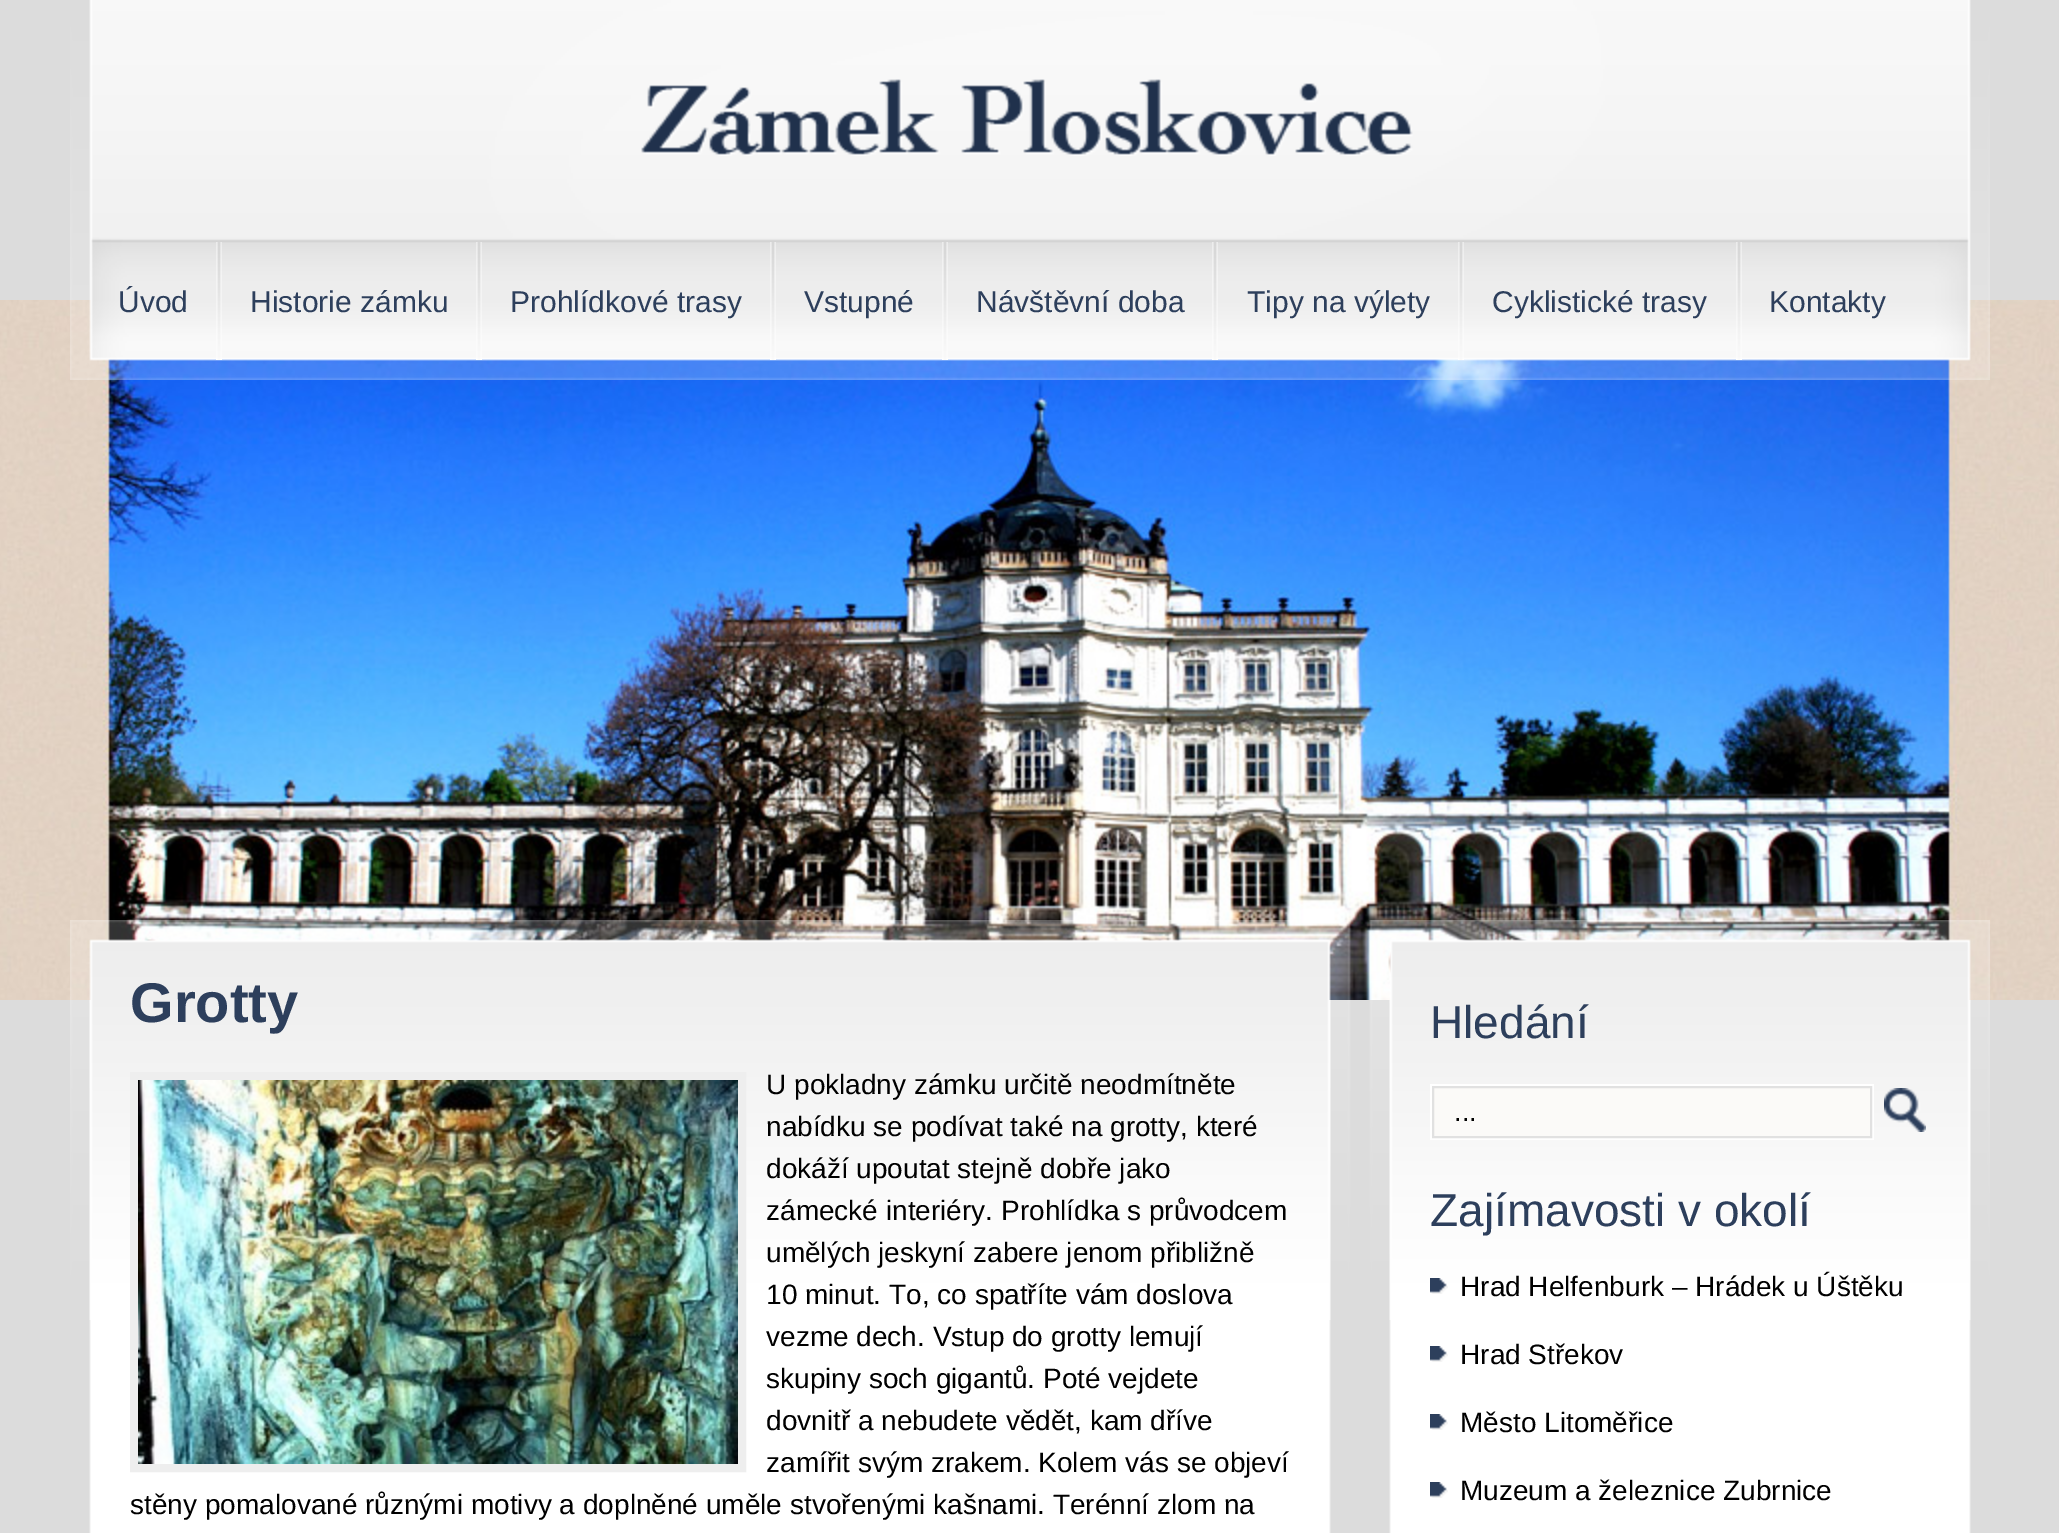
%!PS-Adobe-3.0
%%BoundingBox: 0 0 2059 1533
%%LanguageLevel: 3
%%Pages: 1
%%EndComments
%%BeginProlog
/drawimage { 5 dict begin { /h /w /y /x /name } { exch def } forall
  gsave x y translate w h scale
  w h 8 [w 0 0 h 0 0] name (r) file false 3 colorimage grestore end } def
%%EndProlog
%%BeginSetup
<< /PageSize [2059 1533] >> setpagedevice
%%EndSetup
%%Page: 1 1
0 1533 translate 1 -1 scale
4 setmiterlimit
0.863 setgray
0 0 2059 1533 rectfill
(images/1.raw) 0 300 2059 700 drawimage
(images/2.raw) 70 0 1920 380 drawimage
(images/3.raw) 641 79 772 77 drawimage
(images/4.raw) 216 242 6 118 drawimage
(images/4.raw) 476 242 6 118 drawimage
(images/4.raw) 770 242 6 118 drawimage
(images/4.raw) 942 242 6 118 drawimage
(images/4.raw) 1212 242 6 118 drawimage
(images/4.raw) 1458 242 6 118 drawimage
(images/4.raw) 1736 242 6 118 drawimage
(images/5.raw) 70 920 1920 80 drawimage
(images/6.raw) 89 1000 1882 533 drawimage
(images/7.raw) 70 1000 1920 320 drawimage
0.933 setgray
8 setlinewidth
134 1076 608 392 rectstroke
(images/8.raw) 138 1080 600 384 drawimage
1 setgray
1430 1084 444 56 rectfill
0.984 0.98 0.973 setrgbcolor
newpath 1433 1087 moveto 1871 1087 lineto 1871 1137 lineto 1433 1137 lineto closepath gsave fill grestore
0.882 setgray
2 setlinewidth
stroke
(images/9.raw) 1884 1088 42 44 drawimage
(images/10.raw) 1430 1278 18 16 drawimage
(images/11.raw) 1430 1346 18 16 drawimage
(images/11.raw) 1430 1414 18 16 drawimage
(images/11.raw) 1430 1482 18 16 drawimage
/LiberationSans-Regular [30 0 0 -30 0 0] selectfont
0.176 0.247 0.361 setrgbcolor
118 312 moveto (Úvod) show
250 312 moveto (Historie zámku) show
510 312 moveto (Prohlídkové trasy) show
804 312 moveto (Vstupné) show
976 312 moveto (Návštěvní doba) show
1247 312 moveto (Tipy na výlety) show
1492 312 moveto (Cyklistické trasy) show
1769 312 moveto (Kontakty) show
/LiberationSans-Bold [56 0 0 -56 0 0] selectfont
130 1022 moveto (Grotty) show
/LiberationSans-Regular [28 0 0 -28 0 0] selectfont
0 setgray
766 1094 moveto (U pokladny zámku určitě neodmítněte) show
766 1136 moveto (nabídku se podívat také na grotty, které) show
766 1178 moveto (dokáží upoutat stejně dobře jako) show
766 1220 moveto (zámecké interiéry. Prohlídka s průvodcem) show
766 1262 moveto (umělých jeskyní zabere jenom přibližně) show
766 1304 moveto (10 minut. To, co spatříte vám doslova) show
766 1346 moveto (vezme dech. Vstup do grotty lemují) show
766 1388 moveto (skupiny soch gigantů. Poté vejdete) show
766 1430 moveto (dovnitř a nebudete vědět, kam dříve) show
766 1472 moveto (zamířit svým zrakem. Kolem vás se objeví) show
130 1514 moveto (stěny pomalované různými motivy a doplněné uměle stvořenými kašnami. Terénní zlom na) show
/LiberationSans-Regular [46 0 0 -46 0 0] selectfont
0.176 0.247 0.361 setrgbcolor
1430 1038 moveto (Hledání) show
/LiberationSans-Regular [27 0 0 -27 0 0] selectfont
0 setgray
1454 1121 moveto (...) show
/LiberationSans-Regular [46 0 0 -46 0 0] selectfont
0.176 0.247 0.361 setrgbcolor
1430 1226 moveto (Zajímavosti v okolí) show
/LiberationSans-Regular [28 0 0 -28 0 0] selectfont
0 setgray
1460 1296 moveto (Hrad Helfenburk – Hrádek u Úštěku) show
1460 1364 moveto (Hrad Střekov) show
1460 1432 moveto (Město Litoměřice) show
1460 1500 moveto (Muzeum a železnice Zubrnice) show
showpage
%%EOF
